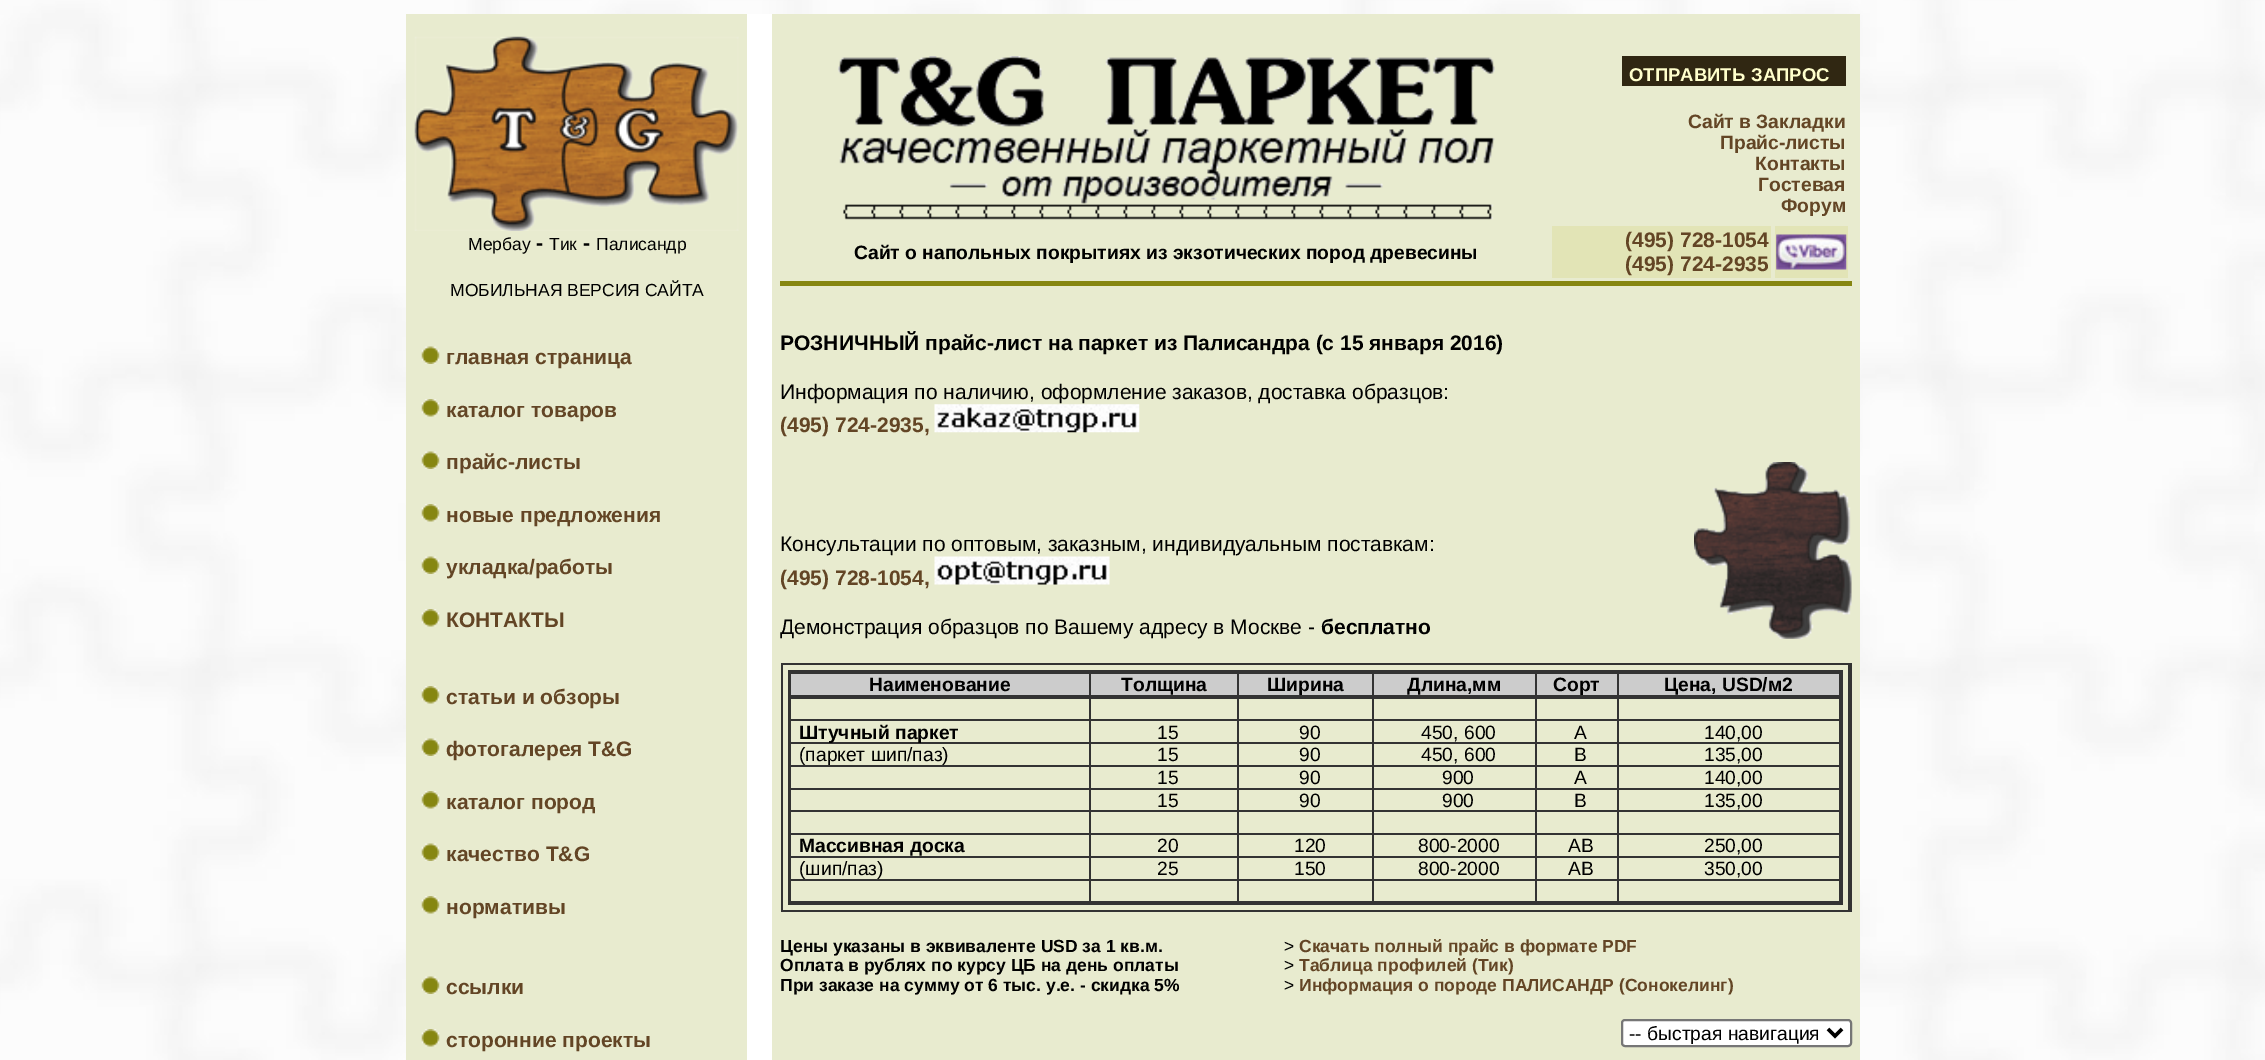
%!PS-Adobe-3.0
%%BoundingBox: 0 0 2265 1060
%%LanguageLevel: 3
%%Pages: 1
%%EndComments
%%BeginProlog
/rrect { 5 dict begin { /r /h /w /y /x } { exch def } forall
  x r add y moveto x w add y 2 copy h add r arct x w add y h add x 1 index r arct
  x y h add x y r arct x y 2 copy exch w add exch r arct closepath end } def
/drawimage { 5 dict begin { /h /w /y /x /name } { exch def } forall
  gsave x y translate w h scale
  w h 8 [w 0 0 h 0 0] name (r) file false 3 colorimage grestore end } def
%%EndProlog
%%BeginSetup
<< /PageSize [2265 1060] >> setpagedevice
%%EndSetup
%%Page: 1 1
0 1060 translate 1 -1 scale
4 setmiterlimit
1 setgray
0 0 2265 1060 rectfill
(images/1.raw) 0 0 2265 1060 drawimage
0.91 0.922 0.812 setrgbcolor
406 14 1454 1046 rectfill
(images/2.raw) 414 36 325 195 drawimage
1 setgray
747 14 25 1046 rectfill
(images/3.raw) 838 56 657 164 drawimage
0.188 0.153 0.071 setrgbcolor
1622 56 224 30 rectfill
0.886 0.894 0.714 setrgbcolor
1552 226 219 52 rectfill
1775 226 73 52 rectfill
(images/4.raw) 1776 234 71 36 drawimage
0.525 0.525 0.067 setrgbcolor
780 281 1072 5 rectfill
(images/5.raw) 421 346 19 18 drawimage
(images/6.raw) 421 399 19 18 drawimage
(images/5.raw) 421 451 19 18 drawimage
(images/6.raw) 421 504 19 18 drawimage
(images/5.raw) 421 556 19 18 drawimage
(images/6.raw) 421 609 19 18 drawimage
(images/6.raw) 421 686 19 18 drawimage
(images/5.raw) 421 738 19 18 drawimage
(images/6.raw) 421 791 19 18 drawimage
(images/5.raw) 421 843 19 18 drawimage
(images/6.raw) 421 896 19 18 drawimage
(images/5.raw) 421 976 19 18 drawimage
(images/6.raw) 421 1029 19 18 drawimage
(images/7.raw) 934 404 206 29 drawimage
(images/8.raw) 934 556 176 29 drawimage
(images/9.raw) 1694 462 158 177 drawimage
0.2 setgray
781 663 1071 2 rectfill
1848 663 4 249 rectfill
781 910 1071 2 rectfill
781 663 2 249 rectfill
788 670 1055 2 rectfill
1839 670 4 235 rectfill
788 903 1055 2 rectfill
788 670 2 235 rectfill
0.8 setgray
791 674 298 21 rectfill
0.2 setgray
789 672 1050 2 rectfill
789 695 1050 4 rectfill
790 672 1 26 rectfill
0.8 setgray
1091 674 146 21 rectfill
0.2 setgray
1089 672 2 26 rectfill
0.8 setgray
1239 674 133 21 rectfill
0.2 setgray
1237 672 2 26 rectfill
0.8 setgray
1374 674 161 21 rectfill
0.2 setgray
1372 672 2 26 rectfill
0.8 setgray
1537 674 80 21 rectfill
0.2 setgray
1535 672 2 26 rectfill
0.8 setgray
1619 674 220 21 rectfill
0.2 setgray
1617 672 2 26 rectfill
789 719 1050 2 rectfill
790 698 1 23 rectfill
1089 698 2 23 rectfill
1237 698 2 23 rectfill
1372 698 2 23 rectfill
1535 698 2 23 rectfill
1617 698 2 23 rectfill
789 742 1050 2 rectfill
790 721 1 23 rectfill
1089 721 2 23 rectfill
1237 721 2 23 rectfill
1372 721 2 23 rectfill
1535 721 2 23 rectfill
1617 721 2 23 rectfill
789 765 1050 2 rectfill
790 744 1 23 rectfill
1089 744 2 23 rectfill
1237 744 2 23 rectfill
1372 744 2 23 rectfill
1535 744 2 23 rectfill
1617 744 2 23 rectfill
789 788 1050 2 rectfill
790 767 1 22 rectfill
1089 767 2 22 rectfill
1237 767 2 22 rectfill
1372 767 2 22 rectfill
1535 767 2 22 rectfill
1617 767 2 22 rectfill
789 810 1050 2 rectfill
790 789 1 23 rectfill
1089 789 2 23 rectfill
1237 789 2 23 rectfill
1372 789 2 23 rectfill
1535 789 2 23 rectfill
1617 789 2 23 rectfill
789 833 1050 2 rectfill
790 812 1 23 rectfill
1089 812 2 23 rectfill
1237 812 2 23 rectfill
1372 812 2 23 rectfill
1535 812 2 23 rectfill
1617 812 2 23 rectfill
789 856 1050 2 rectfill
790 835 1 23 rectfill
1089 835 2 23 rectfill
1237 835 2 23 rectfill
1372 835 2 23 rectfill
1535 835 2 23 rectfill
1617 835 2 23 rectfill
789 879 1050 2 rectfill
790 858 1 22 rectfill
1089 858 2 22 rectfill
1237 858 2 22 rectfill
1372 858 2 22 rectfill
1535 858 2 22 rectfill
1617 858 2 22 rectfill
789 901 1050 2 rectfill
790 880 1 23 rectfill
1089 880 2 23 rectfill
1237 880 2 23 rectfill
1372 880 2 23 rectfill
1535 880 2 23 rectfill
1617 880 2 23 rectfill
1 setgray
1622 1020 229 26 3 rrect gsave fill grestore
0.463 setgray
2 setlinewidth
stroke
0 setgray
3.5 setlinewidth
newpath 1828 1029 moveto 1835 1036 lineto 1842 1029 lineto stroke
/LiberationSans-Regular [17.5 0 0 -17.5 0 0] selectfont
468 250 moveto (Мербау) show
/LiberationSans-Bold [21 0 0 -21 0 0] selectfont
536 250 moveto (-) show
/LiberationSans-Regular [17.5 0 0 -17.5 0 0] selectfont
549 250 moveto (Тик) show
/LiberationSans-Bold [21 0 0 -21 0 0] selectfont
583 250 moveto (-) show
/LiberationSans-Regular [17.5 0 0 -17.5 0 0] selectfont
596 250 moveto (Палисандр) show
450 296 moveto (МОБИЛЬНАЯ ВЕРСИЯ САЙТА) show
/LiberationSans-Bold [18.5 0 0 -18.5 0 0] selectfont
1 1 0.8 setrgbcolor
1629 81 moveto (ОТПРАВИТЬ) show
1751 81 moveto (ЗАПРОС) show
/LiberationSans-Bold [19.25 0 0 -19.25 0 0] selectfont
0.388 0.271 0.145 setrgbcolor
1688 128 moveto (Сайт в Закладки) show
1720 149 moveto (Прайс-листы) show
1755 170 moveto (Контакты) show
1758 191 moveto (Гостевая) show
1781 212 moveto (Форум) show
0 setgray
854 259 moveto (Сайт о напольных покрытиях из экзотических пород древесины) show
/LiberationSans-Bold [21 0 0 -21 0 0] selectfont
0.388 0.271 0.145 setrgbcolor
1625 247 moveto (\(495\) 728-1054) show
1625 271 moveto (\(495\) 724-2935) show
446 364 moveto (главная страница) show
446 417 moveto (каталог товаров) show
446 469 moveto (прайс-листы) show
446 522 moveto (новые предложения) show
446 574 moveto (укладка/работы) show
446 627 moveto (КОНТАКТЫ) show
446 704 moveto (статьи и обзоры) show
446 756 moveto (фотогалерея T&G) show
446 809 moveto (каталог пород) show
446 861 moveto (качество T&G) show
446 914 moveto (нормативы) show
446 994 moveto (ссылки) show
446 1047 moveto (сторонние проекты) show
0 setgray
780 350 moveto (РОЗНИЧНЫЙ прайс-лист на паркет из Палисандра \(с 15 января 2016\)) show
/LiberationSans-Regular [21 0 0 -21 0 0] selectfont
780 399 moveto (Информация по наличию, оформление заказов, доставка образцов:) show
/LiberationSans-Bold [21 0 0 -21 0 0] selectfont
0.388 0.271 0.145 setrgbcolor
780 432 moveto (\(495\) 724-2935,) show
/LiberationSans-Regular [21 0 0 -21 0 0] selectfont
0 setgray
780 551 moveto (Консультации по оптовым, заказным, индивидуальным поставкам:) show
/LiberationSans-Bold [21 0 0 -21 0 0] selectfont
0.388 0.271 0.145 setrgbcolor
780 585 moveto (\(495\) 728-1054,) show
/LiberationSans-Regular [21 0 0 -21 0 0] selectfont
0 setgray
780 634 moveto (Демонстрация образцов по Вашему адресу в Москве -) show
/LiberationSans-Bold [21 0 0 -21 0 0] selectfont
1321 634 moveto (бесплатно) show
/LiberationSans-Bold [19.25 0 0 -19.25 0 0] selectfont
869 691 moveto (Наименование) show
1121 691 moveto (Толщина) show
1267 691 moveto (Ширина) show
1407 691 moveto (Длина,мм) show
1553 691 moveto (Сорт) show
1664 691 moveto (Цена, USD/м2) show
799 739 moveto (Штучный паркет) show
/LiberationSans-Regular [19.25 0 0 -19.25 0 0] selectfont
1157 739 moveto (15) show
1299 739 moveto (90) show
1421 739 moveto (450, 600) show
1574 739 moveto (A) show
1704 739 moveto (140,00) show
799 761 moveto (\(паркет шип/паз\)) show
1157 761 moveto (15) show
1299 761 moveto (90) show
1421 761 moveto (450, 600) show
1574 761 moveto (B) show
1704 761 moveto (135,00) show
1157 784 moveto (15) show
1299 784 moveto (90) show
1442 784 moveto (900) show
1574 784 moveto (A) show
1704 784 moveto (140,00) show
1157 807 moveto (15) show
1299 807 moveto (90) show
1442 807 moveto (900) show
1574 807 moveto (B) show
1704 807 moveto (135,00) show
/LiberationSans-Bold [19.25 0 0 -19.25 0 0] selectfont
799 852 moveto (Массивная доска) show
/LiberationSans-Regular [19.25 0 0 -19.25 0 0] selectfont
1157 852 moveto (20) show
1294 852 moveto (120) show
1418 852 moveto (800-2000) show
1568 852 moveto (AB) show
1704 852 moveto (250,00) show
799 875 moveto (\(шип/паз\)) show
1157 875 moveto (25) show
1294 875 moveto (150) show
1418 875 moveto (800-2000) show
1568 875 moveto (AB) show
1704 875 moveto (350,00) show
/LiberationSans-Bold [17.5 0 0 -17.5 0 0] selectfont
780 952 moveto (Цены указаны в эквиваленте USD за 1 кв.м.) show
780 971 moveto (Оплата в рублях по курсу ЦБ на день оплаты) show
780 991 moveto (При заказе на сумму от 6 тыс. у.е. - скидка 5%) show
/LiberationSans-Regular [17.5 0 0 -17.5 0 0] selectfont
1284 952 moveto (>) show
/LiberationSans-Bold [17.5 0 0 -17.5 0 0] selectfont
0.388 0.271 0.145 setrgbcolor
1299 952 moveto (Скачать полный прайс в формате PDF) show
/LiberationSans-Regular [17.5 0 0 -17.5 0 0] selectfont
0 setgray
1284 971 moveto (>) show
/LiberationSans-Bold [17.5 0 0 -17.5 0 0] selectfont
0.388 0.271 0.145 setrgbcolor
1299 971 moveto (Таблица профилей \(Тик\)) show
/LiberationSans-Regular [17.5 0 0 -17.5 0 0] selectfont
0 setgray
1284 991 moveto (>) show
/LiberationSans-Bold [17.5 0 0 -17.5 0 0] selectfont
0.388 0.271 0.145 setrgbcolor
1299 991 moveto (Информация о породе ПАЛИСАНДР \(Сонокелинг\)) show
/LiberationSans-Regular [19.25 0 0 -19.25 0 0] selectfont
0 setgray
1629 1040 moveto (-- быстрая навигация) show
showpage
%%EOF
